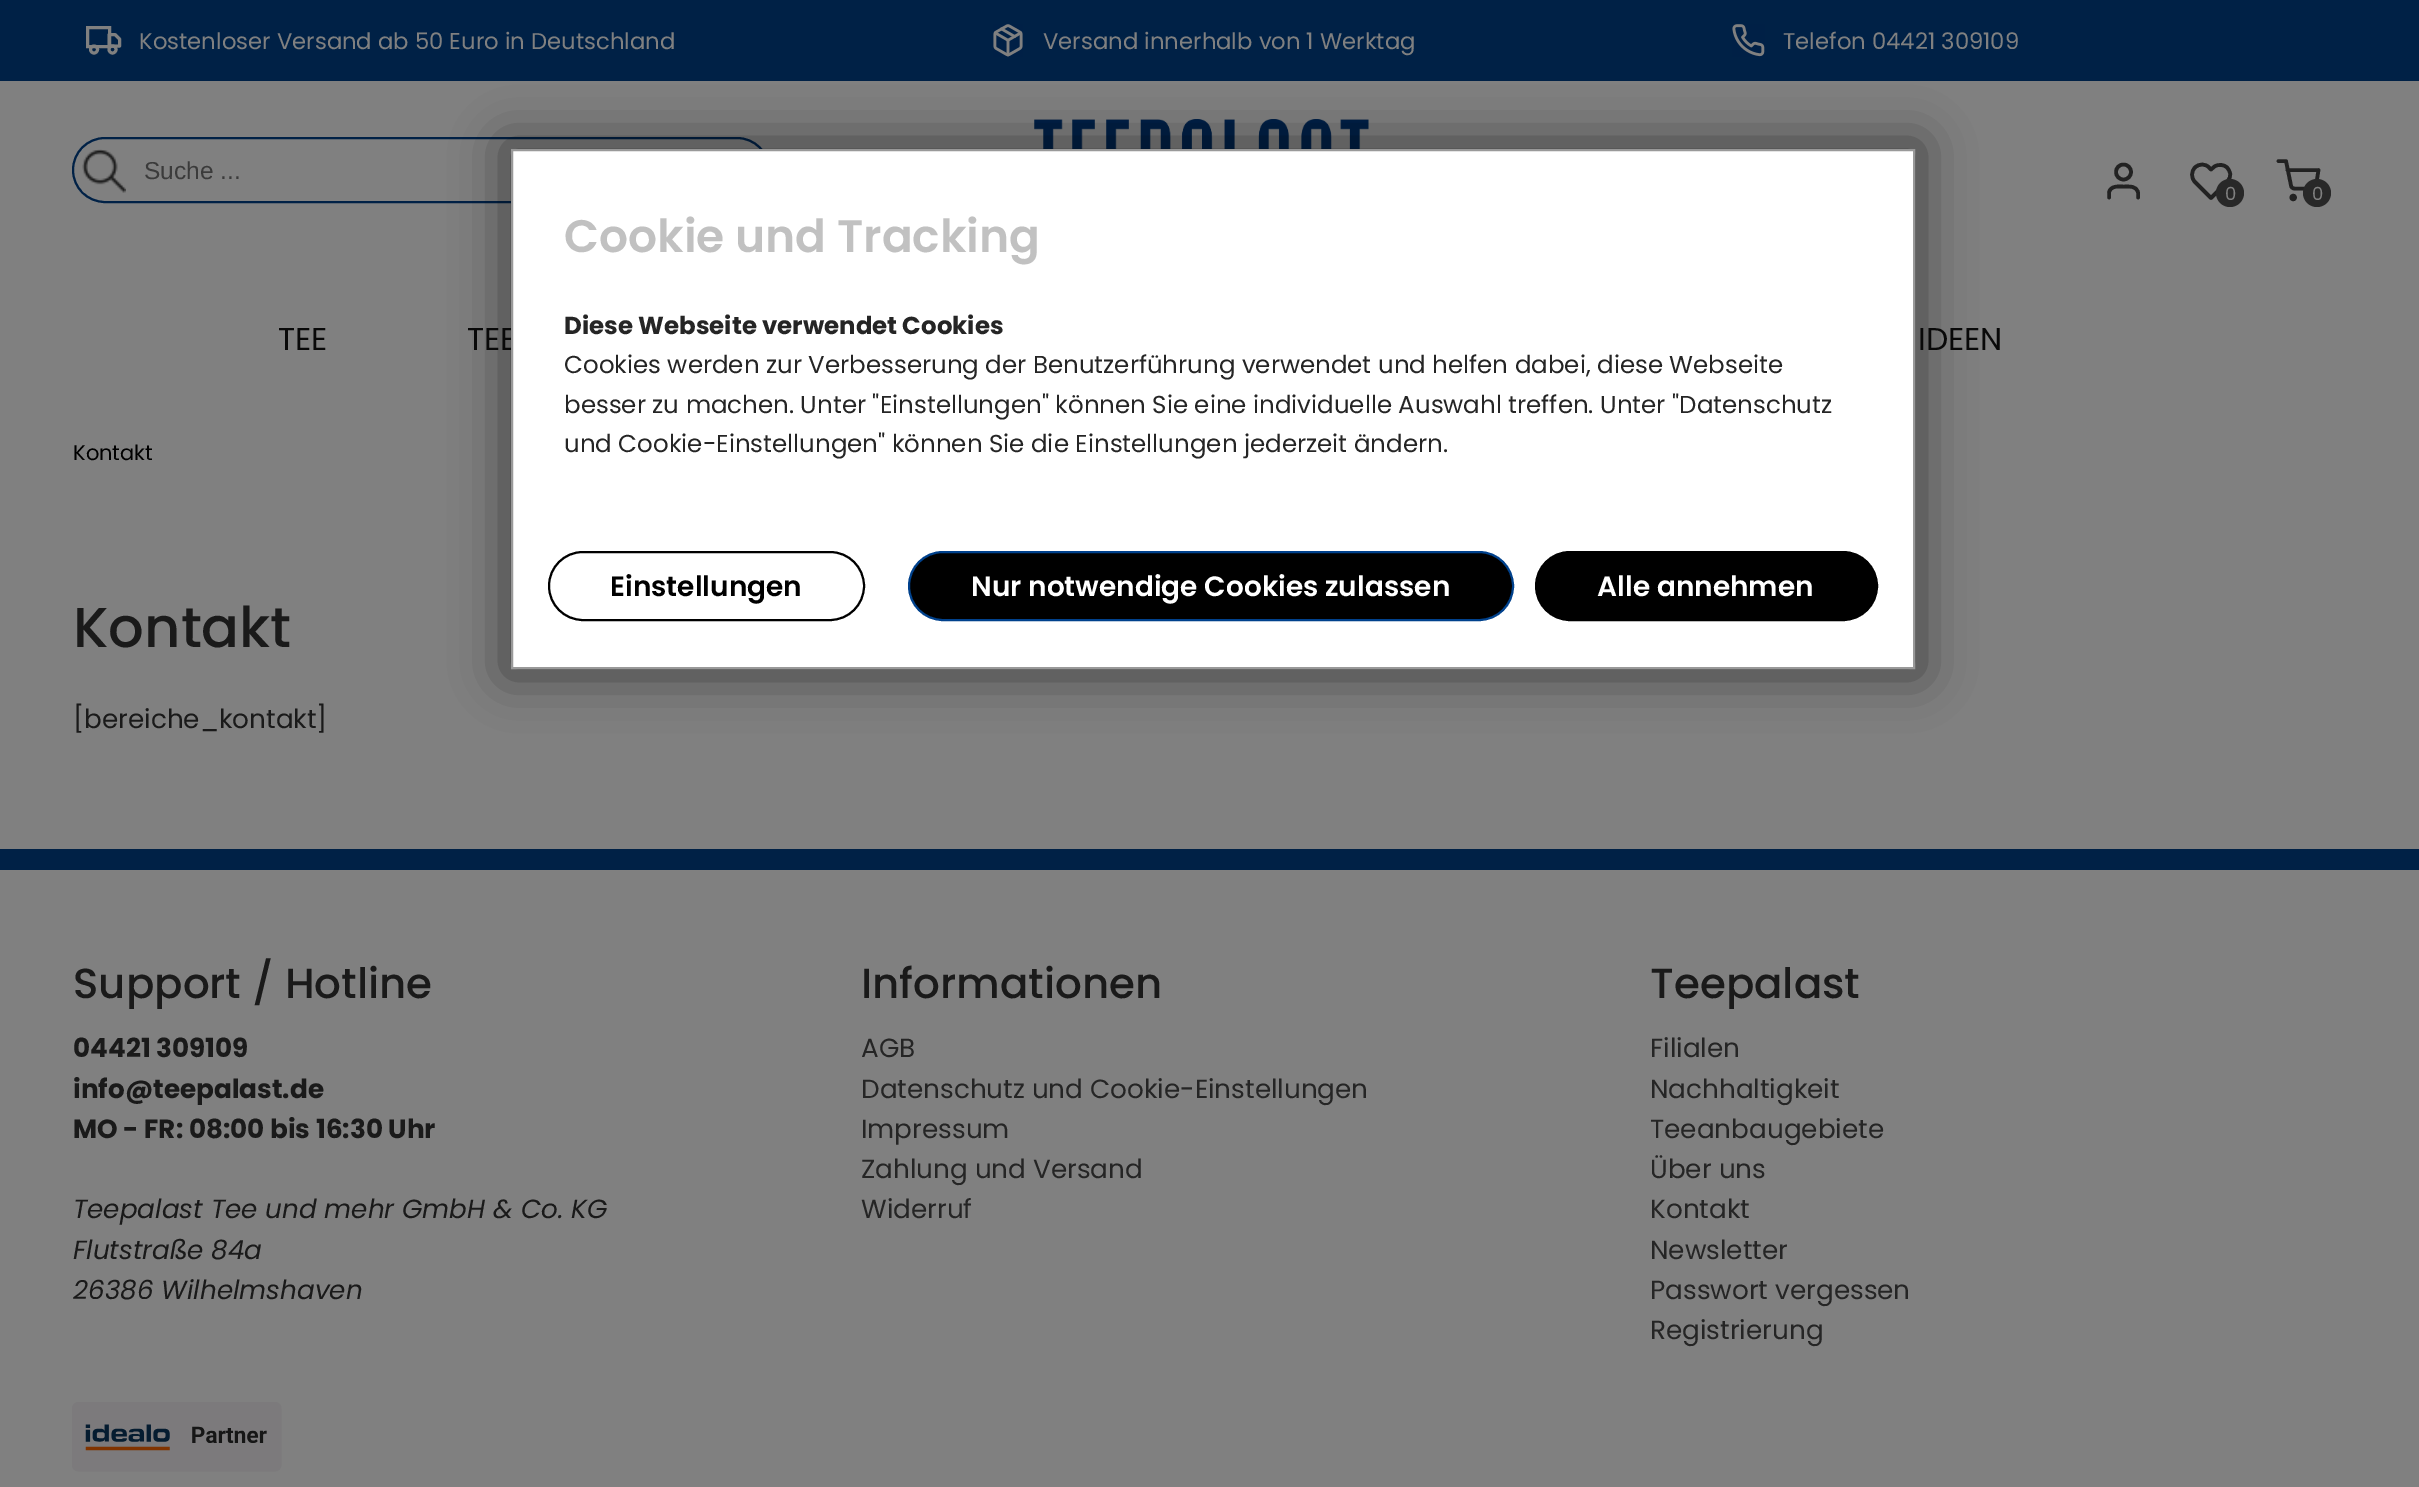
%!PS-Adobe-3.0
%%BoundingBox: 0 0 2419 1487
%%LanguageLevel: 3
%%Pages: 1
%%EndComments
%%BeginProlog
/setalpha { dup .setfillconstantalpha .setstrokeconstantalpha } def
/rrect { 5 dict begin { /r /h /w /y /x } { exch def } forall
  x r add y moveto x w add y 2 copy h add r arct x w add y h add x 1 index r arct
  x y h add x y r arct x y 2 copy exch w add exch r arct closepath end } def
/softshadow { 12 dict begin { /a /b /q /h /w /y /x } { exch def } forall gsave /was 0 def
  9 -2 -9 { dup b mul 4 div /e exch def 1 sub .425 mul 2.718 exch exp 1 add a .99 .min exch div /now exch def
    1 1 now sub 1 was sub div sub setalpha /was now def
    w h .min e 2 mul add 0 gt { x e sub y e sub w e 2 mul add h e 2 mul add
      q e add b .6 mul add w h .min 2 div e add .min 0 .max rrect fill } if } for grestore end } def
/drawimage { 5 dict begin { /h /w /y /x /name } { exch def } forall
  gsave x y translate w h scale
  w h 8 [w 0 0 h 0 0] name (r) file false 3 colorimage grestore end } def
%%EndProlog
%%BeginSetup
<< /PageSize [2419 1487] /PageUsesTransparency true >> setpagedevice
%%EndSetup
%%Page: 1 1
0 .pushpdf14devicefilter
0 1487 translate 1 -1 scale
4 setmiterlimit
0.502 setgray
0 0 2419 1487 rectfill
0 0.129 0.275 setrgbcolor
0 0 2419 81 rectfill
0.502 setgray
3 setlinewidth
87.5 27.5 22 19 rectstroke
2.9 setlinewidth
1 setlinecap
1 setlinejoin
newpath 109 34.5 moveto 115 34.5 lineto 119.5 39 lineto 119.5 46 lineto 109 46 lineto closepath stroke
0 setlinecap
0 setlinejoin
newpath 94 49.5 3.5 0 360 arc closepath stroke
newpath 112.5 49.5 3.5 0 360 arc closepath stroke
(images/1.raw) 993 24 30 33 drawimage
(images/2.raw) 1732 24 33 33 drawimage
(images/3.raw) 1034 119 335 30 drawimage
0 0.129 0.275 setrgbcolor
2 setlinewidth
73 138 696 64 32 rrect stroke
(images/4.raw) 82 149 44 44 drawimage
0.133 setgray
3.6 setlinewidth
newpath 2123.5 172 7.5 0 360 arc closepath stroke
1 setlinecap
1 setlinejoin
newpath 2138 197.5 moveto 2138 192.5 lineto 2136.5 185.5 2129 186.5 2123.5 186.5 curveto 2118.5 186.5 2110.5 185.5 2109 192.5 curveto 2109 197.5 lineto stroke
newpath 2227 167.5 moveto 2224 164.5 2218.5 164 2214.5 166.5 curveto 2211 169.5 lineto 2209 167.5 lineto 2205.5 163.5 2199 163.5 2195 167.5 curveto 2191 171.5 2191 178 2195 182 curveto 2211 198 lineto 2220.5 188.5 lineto 2225 184 2231.5 179.5 2230 173 curveto 2229.5 171 2228.5 169 2227 167.5 curveto closepath stroke
0.157 setgray
newpath 2230 193 14 0 360 arc closepath fill
0.133 setgray
newpath 2278.5 161 moveto 2286 161 lineto 2291 185.5 lineto 2291 187 2292.5 188.5 2294.5 188.5 curveto 2312 188.5 lineto 2314 188.5 2315.5 187 2316 185.5 curveto 2318.5 170 lineto 2287.5 170 lineto stroke
0 setlinecap
0 setlinejoin
newpath 2293.2 197.5 1.8 0 360 arc closepath stroke
0.157 setgray
newpath 2317 193 14 0 360 arc closepath fill
0 setgray
504 142 1418 534 0 25.5 0.5 softshadow
0 0.129 0.275 setrgbcolor
0 849 2419 21 rectfill
(images/5.raw) 72 1402 210 70 drawimage
/Poppins-Regular [22.75 0 0 -22.75 0 0] selectfont
0.502 setgray
139 49 moveto (Kostenloser Versand ab 50 Euro in Deutschland) show
1043 49 moveto (Versand innerhalb von 1 Werktag) show
1783 49 moveto (Telefon 04421 309109) show
/LiberationSans-Regular [24.5 0 0 -24.5 0 0] selectfont
0.231 setgray
144 179 moveto (Suche ...) show
/Poppins-Regular [18 0 0 -18 0 0] selectfont
0.502 setgray
2225 200 moveto (0) show
2312 200 moveto (0) show
/Poppins-Regular [31.5 0 0 -31.5 0 0] selectfont
0.035 setgray
278 350 moveto (TEE) show
467 350 moveto (TEE) show
1918 350 moveto (IDEEN) show
/Poppins-Regular [21 0 0 -21 0 0] selectfont
0 setgray
73 460 moveto (Kontakt) show
/Poppins-Medium [56 0 0 -56 0 0] selectfont
0.102 setgray
73 647 moveto (Kontakt) show
/Poppins-Regular [26.25 0 0 -26.25 0 0] selectfont
73 728 moveto ([bereiche_kontakt]) show
1 setgray
newpath 512 150 moveto 1914 150 lineto 1914 668 lineto 512 668 lineto closepath gsave fill grestore
0.6 setgray
2 setlinewidth
stroke
/Poppins-SemiBold [45.5 0 0 -45.5 0 0] selectfont
0.757 setgray
564 252 moveto (Cookie und Tracking) show
/Poppins-Bold [24.5 0 0 -24.5 0 0] selectfont
0.145 setgray
564 334 moveto (Diese Webseite verwendet Cookies) show
/Poppins-Regular [24.5 0 0 -24.5 0 0] selectfont
564 373 moveto (Cookies werden zur Verbesserung der Benutzerführung verwendet und helfen dabei, diese Webseite) show
564 413 moveto (besser zu machen. Unter "Einstellungen" können Sie eine individuelle Auswahl treffen. Unter "Datenschutz) show
564 452 moveto (und Cookie-Einstellungen" können Sie die Einstellungen jederzeit ändern.) show
0 setgray
549 552 315 68 34 rrect stroke
/Poppins-SemiBold [28 0 0 -28 0 0] selectfont
610 596 moveto (Einstellungen) show
909 552 604 68 34 rrect gsave fill grestore
0 0.255 0.549 setrgbcolor
stroke
1 setgray
971 596 moveto (Nur notwendige Cookies zulassen) show
0 setgray
1536 552 341 68 34 rrect gsave fill grestore
stroke
1 setgray
1597 596 moveto (Alle annehmen) show
/Poppins-Medium [42 0 0 -42 0 0] selectfont
0.102 setgray
73 998 moveto (Support / Hotline) show
/Poppins-Bold [26.25 0 0 -26.25 0 0] selectfont
73 1057 moveto (04421 309109) show
73 1098 moveto (info@teepalast.de) show
73 1138 moveto (MO - FR: 08:00 bis 16:30 Uhr) show
/Poppins-Italic [26.25 0 0 -26.25 0 0] selectfont
73 1218 moveto (Teepalast Tee und mehr GmbH & Co. KG) show
73 1259 moveto (Flutstraße 84a) show
73 1299 moveto (26386 Wilhelmshaven) show
/Poppins-Medium [42 0 0 -42 0 0] selectfont
861 998 moveto (Informationen) show
/Poppins-Regular [26.25 0 0 -26.25 0 0] selectfont
0.145 setgray
861 1057 moveto (AGB) show
861 1098 moveto (Datenschutz und Cookie-Einstellungen) show
861 1138 moveto (Impressum) show
861 1178 moveto (Zahlung und Versand) show
861 1218 moveto (Widerruf) show
/Poppins-Medium [42 0 0 -42 0 0] selectfont
0.102 setgray
1650 998 moveto (Teepalast) show
/Poppins-Regular [26.25 0 0 -26.25 0 0] selectfont
0.145 setgray
1650 1057 moveto (Filialen) show
1650 1098 moveto (Nachhaltigkeit) show
1650 1138 moveto (Teeanbaugebiete) show
1650 1178 moveto (Über uns) show
1650 1218 moveto (Kontakt) show
1650 1259 moveto (Newsletter) show
1650 1299 moveto (Passwort vergessen) show
1650 1339 moveto (Registrierung) show
.poppdf14devicefilter showpage
%%EOF
